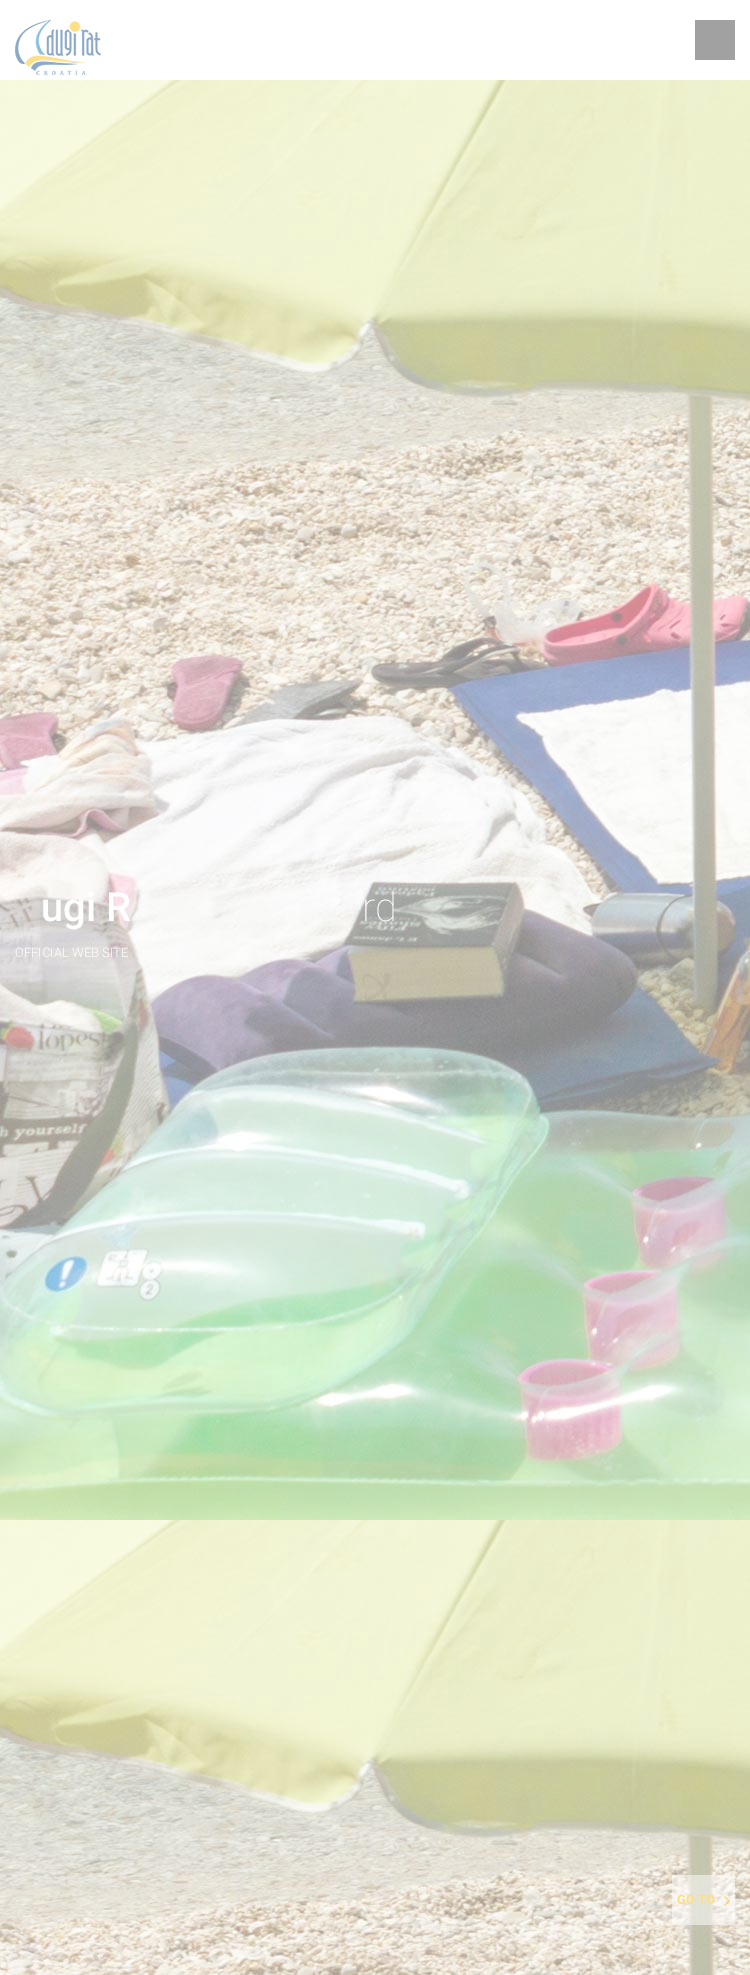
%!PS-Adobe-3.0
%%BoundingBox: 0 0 750 1975
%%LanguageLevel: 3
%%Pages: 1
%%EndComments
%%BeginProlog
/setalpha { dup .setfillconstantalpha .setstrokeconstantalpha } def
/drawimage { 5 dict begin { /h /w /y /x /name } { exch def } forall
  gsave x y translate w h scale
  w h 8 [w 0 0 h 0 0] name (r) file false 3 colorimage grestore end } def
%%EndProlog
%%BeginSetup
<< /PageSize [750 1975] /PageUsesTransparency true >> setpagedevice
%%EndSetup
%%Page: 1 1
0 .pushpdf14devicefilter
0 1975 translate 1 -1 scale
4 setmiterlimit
1 setgray
0 0 750 1975 rectfill
(images/1.raw) 15 20 86 55 drawimage
0.631 setgray
695 20 40 40 rectfill
(images/4.raw) 362 973 29 28 drawimage
(images/2.raw) 0 80 750 1895 drawimage
0.52 setalpha
1 setgray
672 1875 63 50 rectfill
1 setalpha
(images/3.raw) 724 1896 6 11 drawimage
/Roboto-Medium [40 0 0 -40 0 0] selectfont
41 921 moveto (ugi R) show
/Roboto-Thin [40 0 0 -40 0 0] selectfont
362 921 moveto (rd) show
/Roboto-Light [13 0 0 -13 0 0] selectfont
15 957 moveto (OFFICIAL WEB SITE) show
/Roboto-Black [13 0 0 -13 0 0] selectfont
0.992 0.875 0.541 setrgbcolor
677 1904 moveto (GO TO) show
.poppdf14devicefilter showpage
%%EOF
